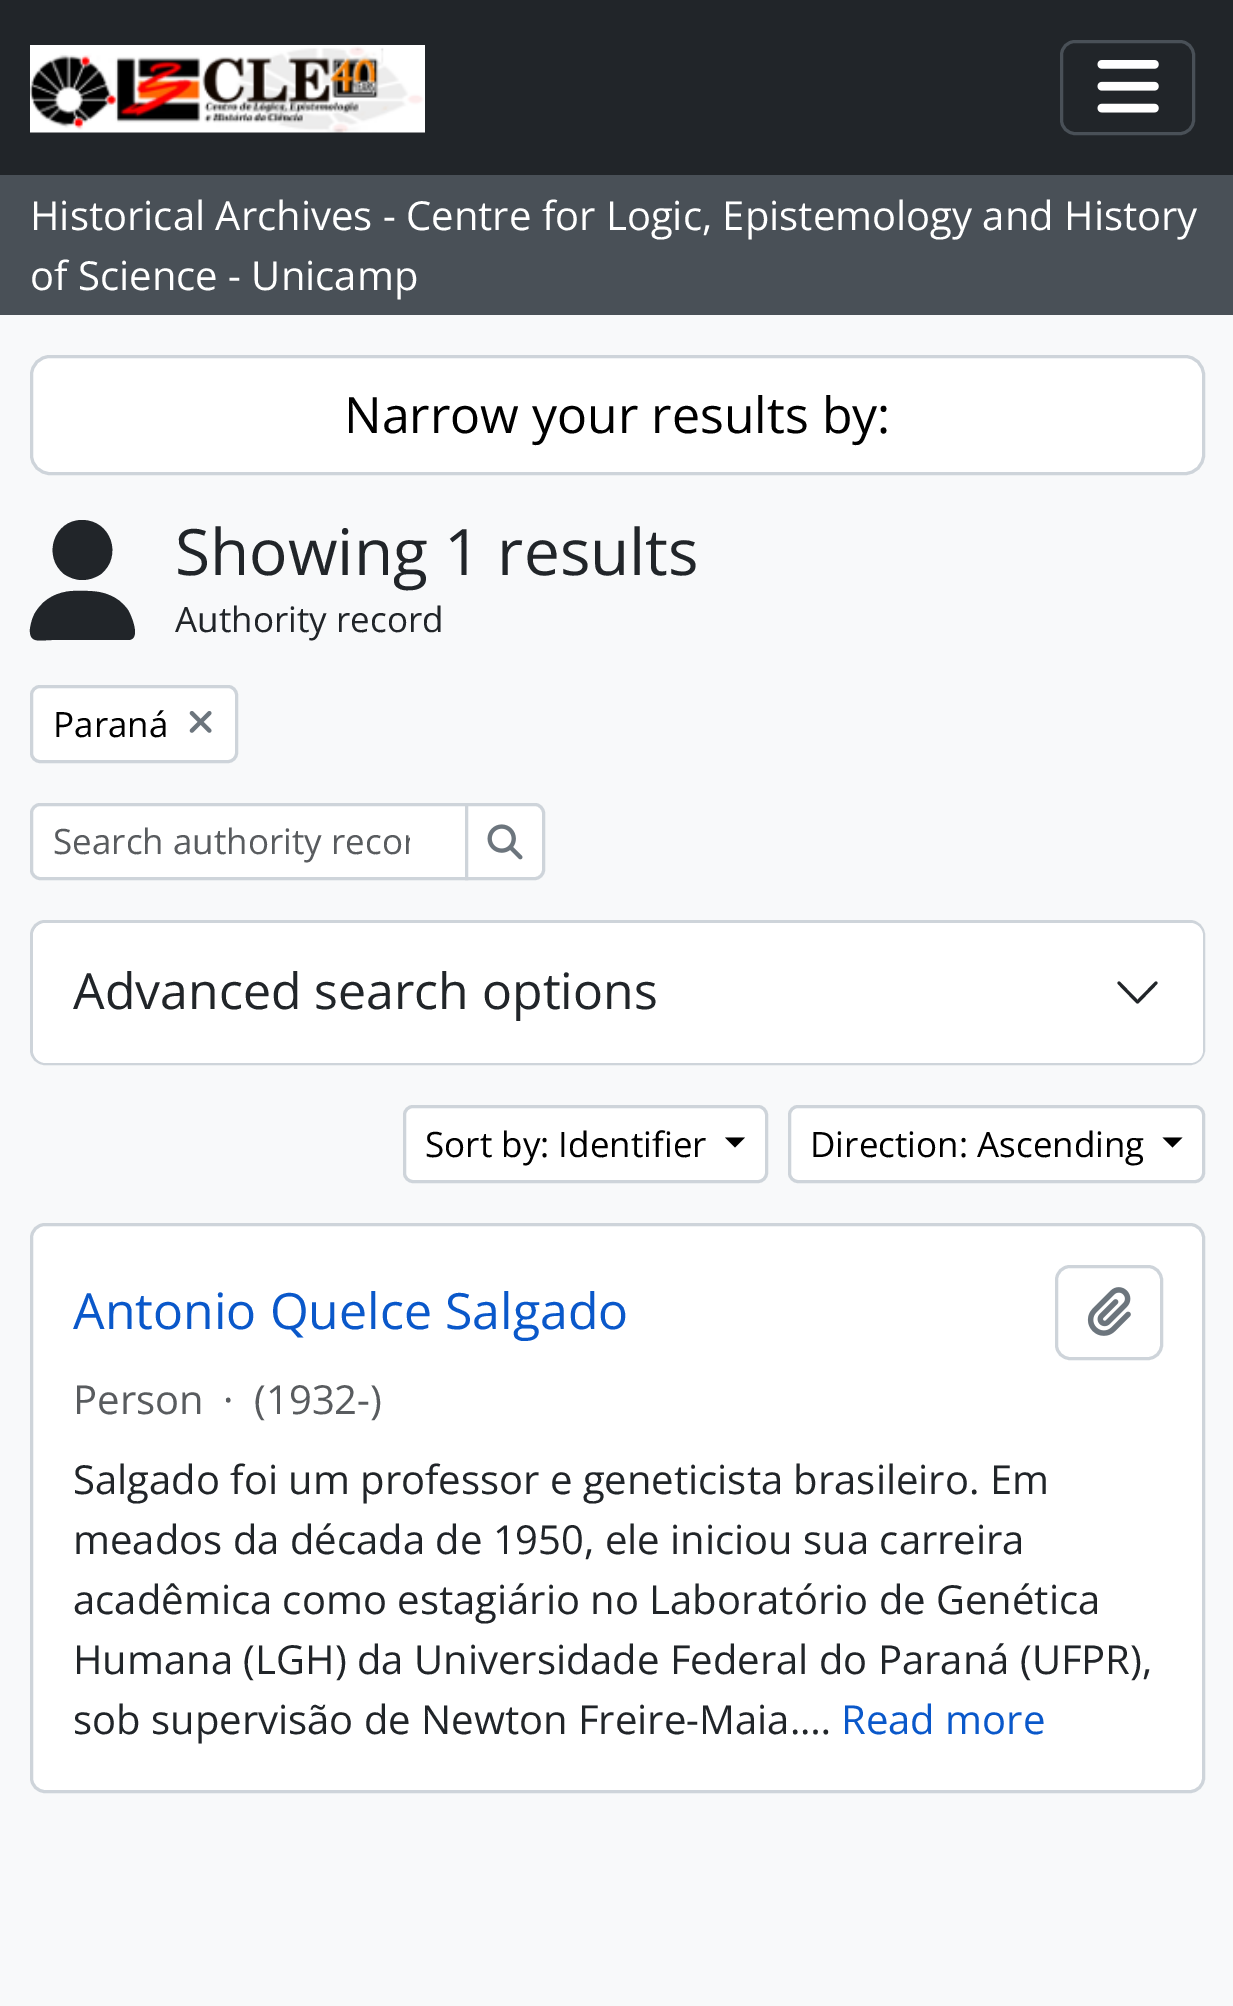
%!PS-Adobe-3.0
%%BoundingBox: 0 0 1233 2006
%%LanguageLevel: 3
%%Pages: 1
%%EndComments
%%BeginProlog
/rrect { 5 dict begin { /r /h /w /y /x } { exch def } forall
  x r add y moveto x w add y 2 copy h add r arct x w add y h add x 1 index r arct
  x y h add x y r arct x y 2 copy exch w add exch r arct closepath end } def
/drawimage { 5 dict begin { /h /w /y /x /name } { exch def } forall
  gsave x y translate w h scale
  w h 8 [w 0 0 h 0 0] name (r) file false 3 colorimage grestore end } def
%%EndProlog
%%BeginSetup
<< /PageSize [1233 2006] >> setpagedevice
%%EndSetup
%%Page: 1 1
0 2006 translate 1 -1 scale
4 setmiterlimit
0.973 0.976 0.98 setrgbcolor
0 0 1233 2006 rectfill
0.129 0.145 0.161 setrgbcolor
0 0 1233 175 rectfill
(images/1.raw) 30 45 395 88 drawimage
0.286 0.314 0.341 setrgbcolor
3 setlinewidth
1061.5 41.5 132 92 13.5 rrect stroke
(images/2.raw) 1097 60 62 53 drawimage
0 175 1233 140 rectfill
1 setgray
31.5 356.5 1172 117 18.5 rrect gsave fill grestore
0.808 0.831 0.855 setrgbcolor
stroke
0.129 0.145 0.161 setrgbcolor
newpath 82 580 moveto 89 580 95 578 101 574 curveto 123 556 111 520 82 520 curveto 54 520 42 556 64 574 curveto 70 578 76 580 82 580 curveto closepath 72 591 moveto 58 592 45 598 37 610 curveto 33 615 31 622 30 629 curveto 29 644 40 640 52 640 curveto 128 640 lineto 142 640 131 615 128 610 curveto 123 603 117 598 109 595 curveto 98 590 84 591 72 591 curveto closepath fill
1 setgray
31.5 686.5 205 75 8.5 rrect gsave fill grestore
0.808 0.831 0.855 setrgbcolor
stroke
(images/3.raw) 189 711 23 22 drawimage
1 setgray
newpath 40 804.5 moveto 466.5 804.5 lineto 466.5 878.5 lineto 40 878.5 lineto 35.5 878.5 31.5 874.5 31.5 870 curveto 31.5 813 lineto 31.5 808.5 35.5 804.5 40 804.5 curveto closepath gsave fill grestore
0.808 0.831 0.855 setrgbcolor
stroke
1 setgray
newpath 466.5 804.5 moveto 535 804.5 lineto 539.5 804.5 543.5 808.5 543.5 813 curveto 543.5 870 lineto 543.5 874.5 539.5 878.5 535 878.5 curveto 466.5 878.5 lineto closepath gsave fill grestore
0.808 0.831 0.855 setrgbcolor
stroke
(images/4.raw) 487 824 36 36 drawimage
1 setgray
31.5 921.5 1172 142 13.5 rrect gsave fill grestore
0.808 0.831 0.855 setrgbcolor
stroke
1 setgray
33 923 1170 140 13 rrect fill
0.129 0.145 0.161 setrgbcolor
3.1 setlinewidth
1 setlinecap
1 setlinejoin
newpath 1119 983 moveto 1137.5 1002 lineto 1156 983 lineto stroke
1 setgray
404.5 1106.5 362 75 8.5 rrect gsave fill grestore
0.808 0.831 0.855 setrgbcolor
3 setlinewidth
0 setlinecap
0 setlinejoin
stroke
0 setgray
newpath 725 1137.5 moveto 745 1137.5 lineto 735 1147.5 lineto closepath fill
1 setgray
789.5 1106.5 414 75 8.5 rrect gsave fill grestore
0.808 0.831 0.855 setrgbcolor
stroke
0 setgray
newpath 1162.5 1137.5 moveto 1182.5 1137.5 lineto 1172.5 1147.5 lineto closepath fill
1 setgray
31.5 1224.5 1172 567 13.5 rrect gsave fill grestore
0.808 0.831 0.855 setrgbcolor
stroke
1056.5 1266.5 105 92 13.5 rrect stroke
(images/5.raw) 1087 1287 44 49 drawimage
/OpenSans-Regular [40 0 0 -40 0 0] selectfont
1 setgray
30 230 moveto (Historical Archives - Centre for Logic, Epistemology and History) show
30 290 moveto (of Science - Unicamp) show
/OpenSans-Regular [50 0 0 -50 0 0] selectfont
0 setgray
344 433 moveto (Narrow your results by:) show
/OpenSans-Regular [64 0 0 -64 0 0] selectfont
0.129 0.145 0.161 setrgbcolor
175 575 moveto (Showing 1 results) show
/OpenSans-Regular [35 0 0 -35 0 0] selectfont
175 632 moveto (Authority record) show
0 setgray
53 737 moveto (Paraná) show
gsave
53 818 357 47 rectclip
0.349 0.361 0.373 setrgbcolor
53 854 moveto (Search authority recor) show
grestore
/OpenSans-Regular [50 0 0 -50 0 0] selectfont
0.129 0.145 0.161 setrgbcolor
73 1009 moveto (Advanced search options) show
/OpenSans-Regular [35 0 0 -35 0 0] selectfont
0 setgray
425 1157 moveto (Sort by: Identifier) show
810 1157 moveto (Direction: Ascending) show
/OpenSans-Regular [50 0 0 -50 0 0] selectfont
0.039 0.345 0.792 setrgbcolor
73 1329 moveto (Antonio Quelce Salgado) show
/OpenSans-Regular [40 0 0 -40 0 0] selectfont
0.349 0.361 0.373 setrgbcolor
73 1414 moveto (Person) show
223 1414 moveto (·) show
254 1414 moveto (\(1932-\)) show
0.129 0.145 0.161 setrgbcolor
73 1494 moveto (Salgado foi um professor e geneticista brasileiro. Em) show
73 1554 moveto (meados da década de 1950, ele iniciou sua carreira) show
73 1614 moveto (acadêmica como estagiário no Laboratório de Genética) show
73 1674 moveto (Humana \(LGH\) da Universidade Federal do Paraná \(UFPR\),) show
73 1734 moveto (sob supervisão de Newton Freire-Maia.…) show
0.039 0.345 0.792 setrgbcolor
841 1734 moveto (Read more) show
showpage
%%EOF
